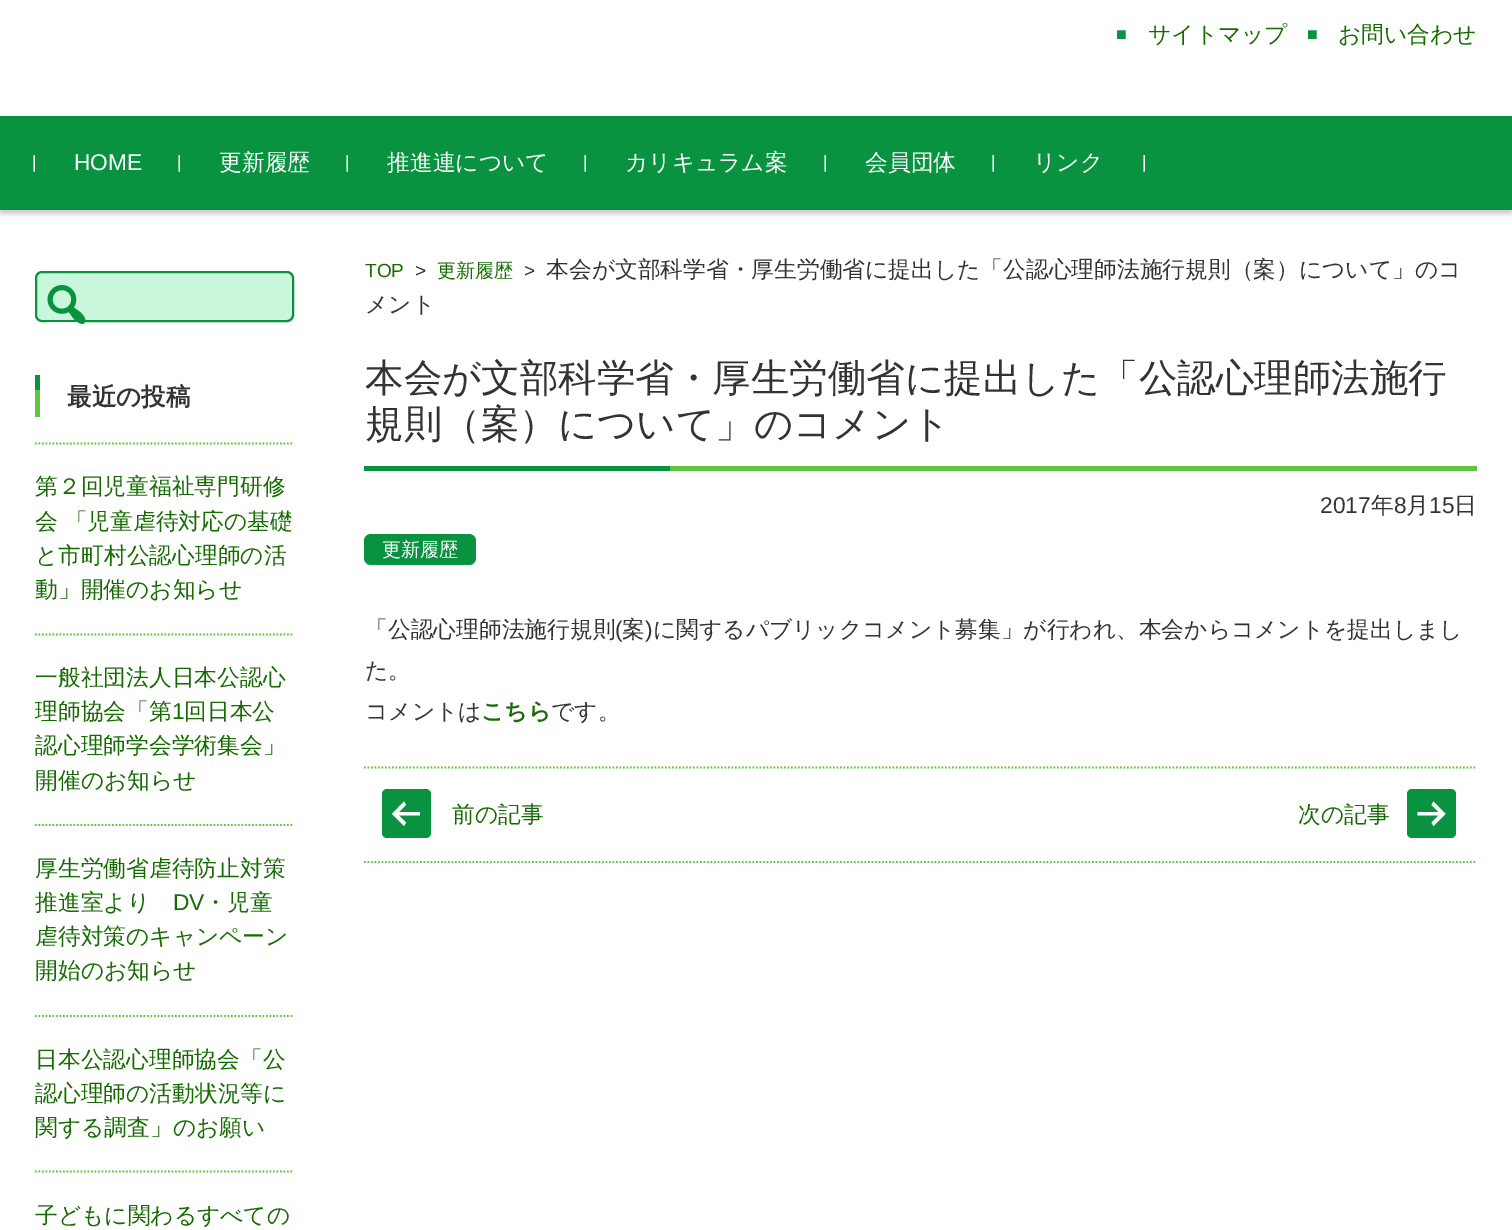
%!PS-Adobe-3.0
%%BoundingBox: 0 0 1512 1230
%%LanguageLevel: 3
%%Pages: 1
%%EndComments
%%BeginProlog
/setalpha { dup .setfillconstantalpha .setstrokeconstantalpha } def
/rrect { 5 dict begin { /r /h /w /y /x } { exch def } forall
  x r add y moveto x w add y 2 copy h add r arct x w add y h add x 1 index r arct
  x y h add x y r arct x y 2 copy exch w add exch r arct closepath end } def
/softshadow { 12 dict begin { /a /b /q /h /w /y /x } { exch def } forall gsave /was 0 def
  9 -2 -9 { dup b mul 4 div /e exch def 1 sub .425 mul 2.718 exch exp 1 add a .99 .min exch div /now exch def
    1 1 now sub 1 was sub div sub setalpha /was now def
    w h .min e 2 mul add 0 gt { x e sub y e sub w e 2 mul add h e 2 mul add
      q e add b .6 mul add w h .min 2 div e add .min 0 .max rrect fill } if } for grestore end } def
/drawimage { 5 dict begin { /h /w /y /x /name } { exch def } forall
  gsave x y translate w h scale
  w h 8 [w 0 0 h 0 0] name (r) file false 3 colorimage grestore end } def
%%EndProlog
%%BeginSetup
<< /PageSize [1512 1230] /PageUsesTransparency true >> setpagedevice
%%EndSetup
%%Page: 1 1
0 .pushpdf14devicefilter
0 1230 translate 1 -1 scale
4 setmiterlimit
1 setgray
0 0 1512 1230 rectfill
0 setgray
0 119 1512 95 0 2.5 0.2 softshadow
0.035 0.576 0.255 setrgbcolor
0 116 1512 94 rectfill
0.784 0.969 0.859 setrgbcolor
36 272 257 49 6 rrect gsave fill grestore
0.035 0.576 0.255 setrgbcolor
2 setlinewidth
stroke
(images/1.raw) 47 285 39 39 drawimage
0.373 0.776 0.239 setrgbcolor
35 390 5 27 rectfill
0.035 0.576 0.255 setrgbcolor
35 375 5 15 rectfill
0.373 0.776 0.239 setrgbcolor
1.8 setlinewidth
[1.75 1.75] 0 setdash
newpath 35 443.5 moveto 294 443.5 lineto stroke
newpath 35 634.5 moveto 294 634.5 lineto stroke
newpath 35 825 moveto 294 825 lineto stroke
newpath 35 1016 moveto 294 1016 lineto stroke
newpath 35 1171.5 moveto 294 1171.5 lineto stroke
670 466 807 5 rectfill
0.035 0.576 0.255 setrgbcolor
364 466 306 5 rectfill
364 534 112 31 7 rrect fill
0.373 0.776 0.239 setrgbcolor
newpath 364 767.5 moveto 1477 767.5 lineto stroke
newpath 364 862 moveto 1477 862 lineto stroke
0.035 0.576 0.255 setrgbcolor
382 789 49 49 5 rrect fill
1 setgray
newpath 420 812 moveto 420 815.5 lineto 399 815.5 lineto 406 822.5 lineto 404 826 lineto 392 814 lineto 404 801.5 lineto 406 805 lineto 399 812 lineto closepath fill
0.035 0.576 0.255 setrgbcolor
1407 789 49 49 5 rrect fill
1 setgray
newpath 1417.5 815.5 moveto 1417.5 812 lineto 1438.5 812 lineto 1431.5 805 lineto 1433.5 801.5 lineto 1445.5 814 lineto 1433.5 826 lineto 1431.5 822.5 lineto 1438.5 815.5 lineto closepath fill
/LiberationSans-Regular [18 0 0 -18 0 0] selectfont
0.035 0.576 0.255 setrgbcolor
1116 40 moveto (■) show
/WenQuanYiZenHei-Medium [22.75 0 0 -22.75 0 0] selectfont
0.082 0.42 0.008 setrgbcolor
1148 42 moveto (サイトマップ) show
/LiberationSans-Regular [18 0 0 -18 0 0] selectfont
0.035 0.576 0.255 setrgbcolor
1307 40 moveto (■) show
/WenQuanYiZenHei-Medium [22.75 0 0 -22.75 0 0] selectfont
0.082 0.42 0.008 setrgbcolor
1338 42 moveto (お問い合わせ) show
/LiberationSans-Regular [18 0 0 -18 0 0] selectfont
1 setgray
32 168 moveto (|) show
/LiberationSans-Regular [22.75 0 0 -22.75 0 0] selectfont
74 170 moveto (HOME) show
/LiberationSans-Regular [18 0 0 -18 0 0] selectfont
177 168 moveto (|) show
/WenQuanYiZenHei-Medium [22.75 0 0 -22.75 0 0] selectfont
219 170 moveto (更新履歴) show
/LiberationSans-Regular [18 0 0 -18 0 0] selectfont
345 168 moveto (|) show
/WenQuanYiZenHei-Medium [22.75 0 0 -22.75 0 0] selectfont
387 170 moveto (推進連について) show
/LiberationSans-Regular [18 0 0 -18 0 0] selectfont
583 168 moveto (|) show
/WenQuanYiZenHei-Medium [22.75 0 0 -22.75 0 0] selectfont
625 170 moveto (カリキュラム案) show
/LiberationSans-Regular [18 0 0 -18 0 0] selectfont
823 168 moveto (|) show
/WenQuanYiZenHei-Medium [22.75 0 0 -22.75 0 0] selectfont
865 170 moveto (会員団体) show
/LiberationSans-Regular [18 0 0 -18 0 0] selectfont
991 168 moveto (|) show
/WenQuanYiZenHei-Medium [22.75 0 0 -22.75 0 0] selectfont
1033 170 moveto (リンク) show
/LiberationSans-Regular [18 0 0 -18 0 0] selectfont
1142 168 moveto (|) show
/WenQuanYiZenHei-Bold [24.5 0 0 -24.5 0 0] selectfont
0.2 setgray
67 405 moveto (最近の投稿) show
/WenQuanYiZenHei-Medium [22.75 0 0 -22.75 0 0] selectfont
0.082 0.42 0.008 setrgbcolor
35 494 moveto (第２回児童福祉専門研修) show
35 529 moveto (会 「児童虐待対応の基礎) show
35 563 moveto (と市町村公認心理師の活) show
35 597 moveto (動」開催のお知らせ) show
35 685 moveto (一般社団法人日本公認心) show
35 719 moveto (理師協会「第) show
/LiberationSans-Regular [22.75 0 0 -22.75 0 0] selectfont
172 719 moveto (1) show
/WenQuanYiZenHei-Medium [22.75 0 0 -22.75 0 0] selectfont
184 719 moveto (回日本公) show
35 753 moveto (認心理師学会学術集会」) show
35 788 moveto (開催のお知らせ) show
35 876 moveto (厚生労働省虐待防止対策) show
35 910 moveto (推進室より) show
/LiberationSans-Regular [22.75 0 0 -22.75 0 0] selectfont
173 910 moveto (DV) show
/WenQuanYiZenHei-Medium [22.75 0 0 -22.75 0 0] selectfont
204 910 moveto (・児童) show
35 944 moveto (虐待対策のキャンペーン) show
35 978 moveto (開始のお知らせ) show
35 1067 moveto (日本公認心理師協会「公) show
35 1101 moveto (認心理師の活動状況等に) show
35 1135 moveto (関する調査」のお願い) show
35 1223 moveto (子どもに関わるすべての) show
/LiberationSans-Regular [19 0 0 -19 0 0] selectfont
365 277 moveto (TOP) show
0.2 setgray
415 277 moveto (>) show
/WenQuanYiZenHei-Medium [19 0 0 -19 0 0] selectfont
0.082 0.42 0.008 setrgbcolor
437 277 moveto (更新履歴) show
/LiberationSans-Regular [19 0 0 -19 0 0] selectfont
0.2 setgray
524 277 moveto (>) show
/WenQuanYiZenHei-Medium [22.75 0 0 -22.75 0 0] selectfont
546 277 moveto (本会が文部科学省・厚生労働省に提出した「公認心理師法施行規則（案）について」のコ) show
365 312 moveto (メント) show
/WenQuanYiZenHei-Medium [38.5 0 0 -38.5 0 0] selectfont
365 391 moveto (本会が文部科学省・厚生労働省に提出した「公認心理師法施行) show
365 437 moveto (規則（案）について」のコメント) show
/LiberationSans-Regular [22.75 0 0 -22.75 0 0] selectfont
1320 513 moveto (2017) show
/WenQuanYiZenHei-Medium [22.75 0 0 -22.75 0 0] selectfont
1371 513 moveto (年) show
/LiberationSans-Regular [22.75 0 0 -22.75 0 0] selectfont
1394 513 moveto (8) show
/WenQuanYiZenHei-Medium [22.75 0 0 -22.75 0 0] selectfont
1406 513 moveto (月) show
/LiberationSans-Regular [22.75 0 0 -22.75 0 0] selectfont
1429 513 moveto (15) show
/WenQuanYiZenHei-Medium [22.75 0 0 -22.75 0 0] selectfont
1454 513 moveto (日) show
/WenQuanYiZenHei-Medium [19 0 0 -19 0 0] selectfont
1 setgray
382 556 moveto (更新履歴) show
/WenQuanYiZenHei-Medium [22.75 0 0 -22.75 0 0] selectfont
0.2 setgray
365 637 moveto (「公認心理師法施行規則) show
/LiberationSans-Regular [22.75 0 0 -22.75 0 0] selectfont
615 637 moveto (\() show
/WenQuanYiZenHei-Medium [22.75 0 0 -22.75 0 0] selectfont
622 637 moveto (案) show
/LiberationSans-Regular [22.75 0 0 -22.75 0 0] selectfont
645 637 moveto (\)) show
/WenQuanYiZenHei-Medium [22.75 0 0 -22.75 0 0] selectfont
653 637 moveto (に関するパブリックコメント募集」が行われ、本会からコメントを提出しまし) show
365 678 moveto (た。) show
365 719 moveto (コメントは) show
/WenQuanYiZenHei-Bold [22.75 0 0 -22.75 0 0] selectfont
0.082 0.42 0.008 setrgbcolor
481 719 moveto (こちら) show
/WenQuanYiZenHei-Medium [22.75 0 0 -22.75 0 0] selectfont
0.2 setgray
551 719 moveto (です。) show
0.082 0.42 0.008 setrgbcolor
452 822 moveto (前の記事) show
1298 822 moveto (次の記事) show
.poppdf14devicefilter showpage
%%EOF
